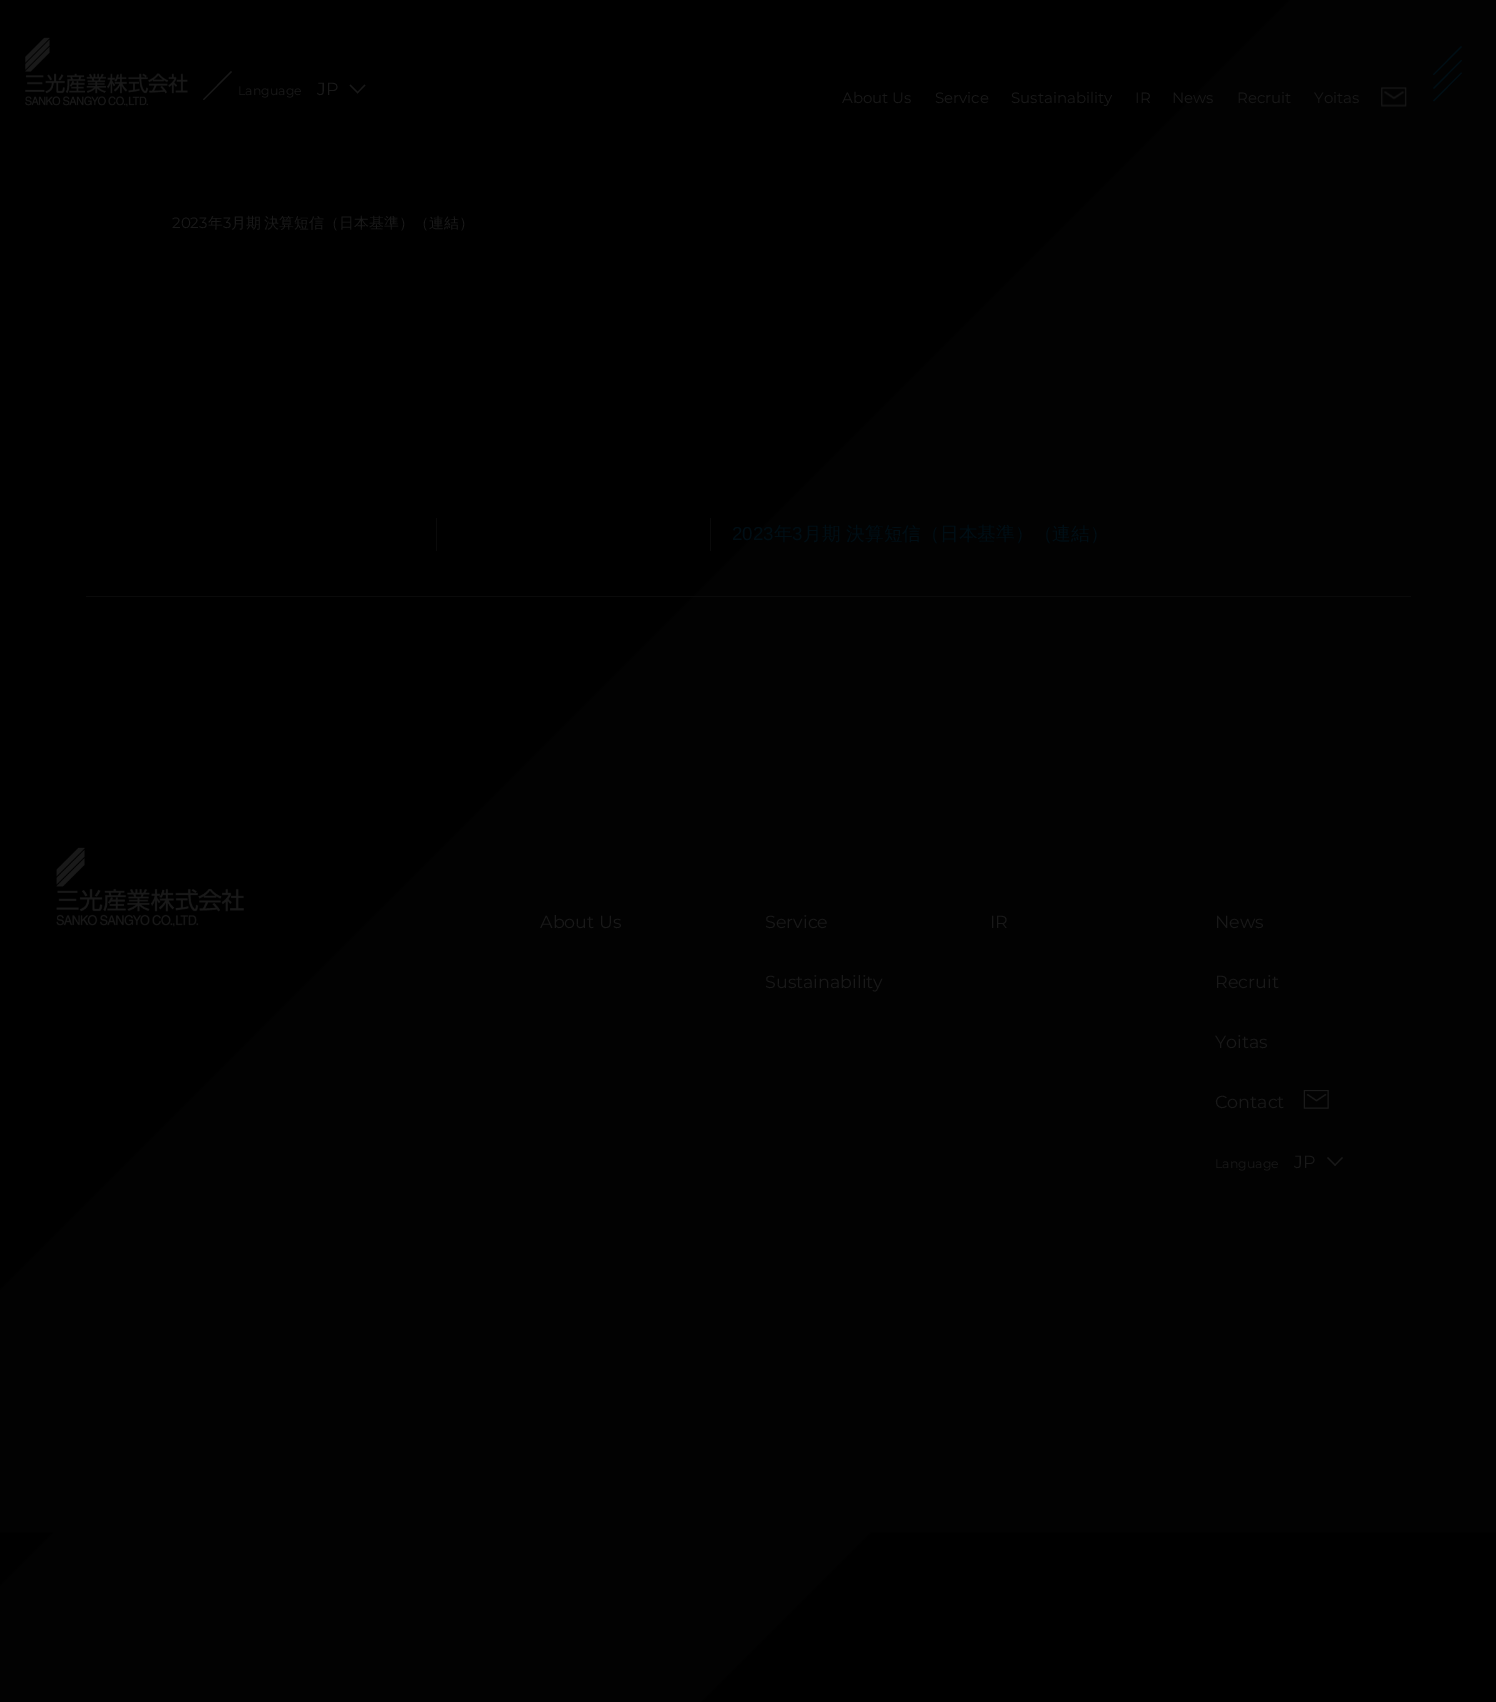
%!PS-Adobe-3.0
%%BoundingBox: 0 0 1496 1702
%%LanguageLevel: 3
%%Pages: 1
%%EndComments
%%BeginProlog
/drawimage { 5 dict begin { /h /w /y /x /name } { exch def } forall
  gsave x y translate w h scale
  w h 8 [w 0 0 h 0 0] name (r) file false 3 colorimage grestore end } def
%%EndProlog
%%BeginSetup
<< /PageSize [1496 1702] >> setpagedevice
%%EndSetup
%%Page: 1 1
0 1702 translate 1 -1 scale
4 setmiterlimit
0 setgray
0 0 1496 1702 rectfill
(images/1.raw) 0 0 1496 1702 drawimage
(images/2.raw) 25 37 163 70 drawimage
0.098 setgray
newpath 203 99.5 moveto 231 71 lineto 232 72 lineto 204 100 lineto closepath fill
newpath 364.5 84.5 moveto 365.5 85.5 lineto 357.5 93.5 lineto 357 92.5 lineto closepath fill
newpath 350.5 84.5 moveto 358.5 92.5 lineto 357.5 93.5 lineto 349.5 85.5 lineto closepath fill
(images/3.raw) 1381 87 26 20 drawimage
0 0.055 0.082 setrgbcolor
newpath 1433 74.5 moveto 1461 46 lineto 1462 47 lineto 1434 75 lineto closepath fill
newpath 1433 88 moveto 1461 60 lineto 1462 60.5 lineto 1434 89 lineto closepath fill
newpath 1433 100.5 moveto 1461 72.5 lineto 1462 73 lineto 1434 101.5 lineto closepath fill
0.039 setgray
86 596 1325 1 rectfill
710 518 1 33 rectfill
436 518 1 33 rectfill
(images/4.raw) 56 847 188 80 drawimage
(images/5.raw) 1303 1090 26 19 drawimage
0.098 setgray
newpath 1342 1157 moveto 1343 1158 lineto 1335 1166 lineto 1334.5 1165 lineto closepath fill
newpath 1328 1157 moveto 1336 1165 lineto 1335 1166 lineto 1327 1158 lineto closepath fill
/Montserrat-Regular [12.5 0 0 -12.5 0 0] selectfont
238 95 moveto (Language) show
/Montserrat-Regular [17.5 0 0 -17.5 0 0] selectfont
317 95 moveto (JP) show
/Montserrat-Regular [15 0 0 -15 0 0] selectfont
842 103 moveto (About Us) show
935 103 moveto (Service) show
1011 103 moveto (Sustainability) show
1135 103 moveto (IR) show
1172 103 moveto (News) show
1237 103 moveto (Recruit) show
1314 103 moveto (Yoitas) show
172 228 moveto (2023) show
/WenQuanYiZenHei-Medium [15 0 0 -15 0 0] selectfont
208 228 moveto (年) show
/Montserrat-Regular [15 0 0 -15 0 0] selectfont
223 228 moveto (3) show
/WenQuanYiZenHei-Medium [15 0 0 -15 0 0] selectfont
231 228 moveto -1 0 32 (月期 決算短信（日本基準）（連結）) widthshow
/LiberationSans-Regular [18.75 0 0 -18.75 0 0] selectfont
0 0.055 0.082 setrgbcolor
732 540 moveto (2023) show
/WenQuanYiZenHei-Medium [18.75 0 0 -18.75 0 0] selectfont
774 540 moveto (年) show
/LiberationSans-Regular [18.75 0 0 -18.75 0 0] selectfont
792 540 moveto (3) show
/WenQuanYiZenHei-Medium [18.75 0 0 -18.75 0 0] selectfont
803 540 moveto (月期 決算短信（日本基準）（連結）) show
/Montserrat-Regular [17.5 0 0 -17.5 0 0] selectfont
0.098 setgray
540 928 moveto (About Us) show
765 928 moveto (Service) show
765 988 moveto (Sustainability) show
990 928 moveto (IR) show
1215 928 moveto (News) show
1215 988 moveto (Recruit) show
1215 1048 moveto (Yoitas) show
1215 1108 moveto (Contact) show
/Montserrat-Regular [12.5 0 0 -12.5 0 0] selectfont
1215 1168 moveto (Language) show
/Montserrat-Regular [17.5 0 0 -17.5 0 0] selectfont
1294 1168 moveto (JP) show
showpage
%%EOF
